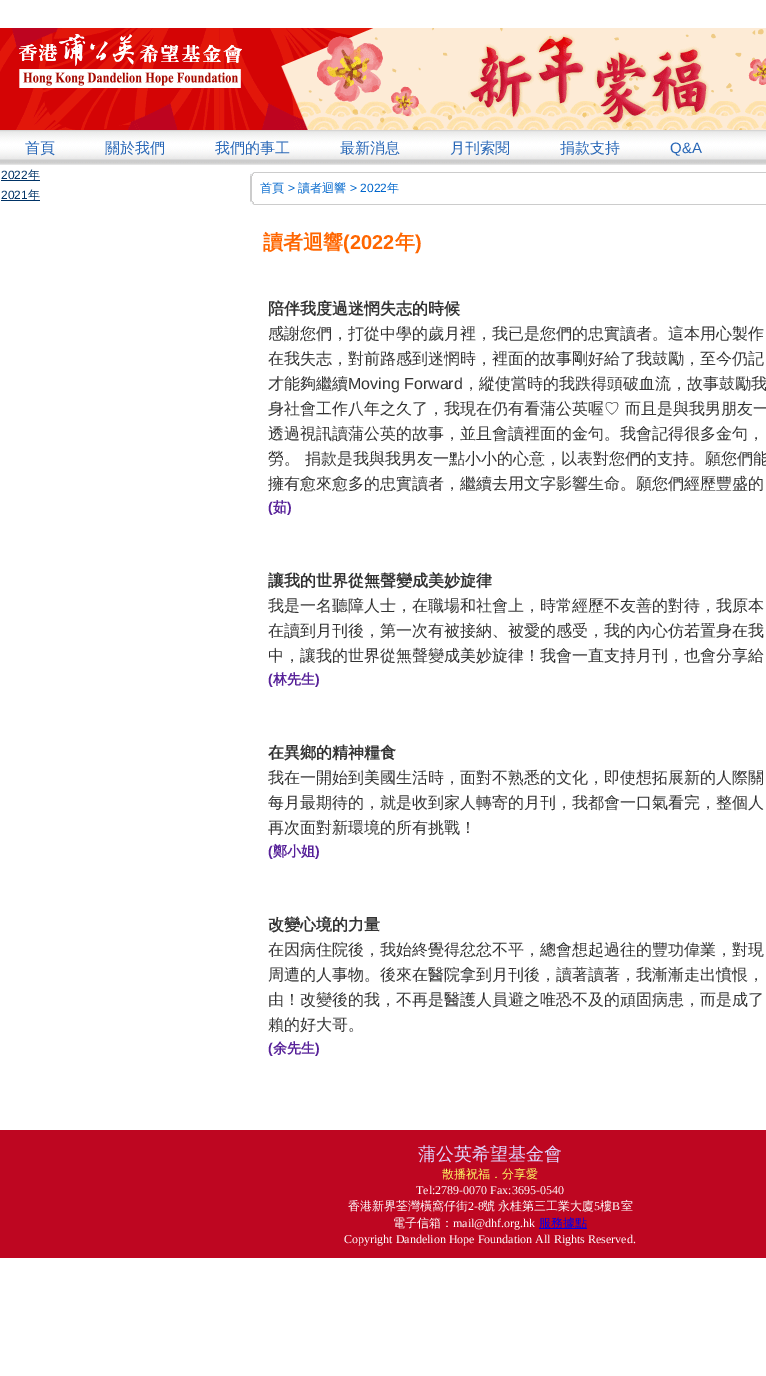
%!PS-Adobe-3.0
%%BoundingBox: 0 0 766 1376
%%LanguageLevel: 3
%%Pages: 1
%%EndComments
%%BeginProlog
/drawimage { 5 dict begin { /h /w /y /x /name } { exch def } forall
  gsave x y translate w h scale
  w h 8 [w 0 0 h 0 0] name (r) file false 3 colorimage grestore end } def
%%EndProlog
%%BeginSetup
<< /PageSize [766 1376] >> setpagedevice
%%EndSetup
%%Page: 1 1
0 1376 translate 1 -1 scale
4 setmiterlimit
1 setgray
0 0 766 1376 rectfill
(images/1.raw) 0 28 766 102 drawimage
(images/2.raw) 0 130 766 35 drawimage
(images/3.raw) 85 151 99 1 drawimage
(images/4.raw) 195 150 120 1 drawimage
(images/3.raw) 540 151 99 1 drawimage
(images/5.raw) 650 150 71 1 drawimage
0 0.2 0.4 setrgbcolor
1 180 39 1 rectfill
1 200 39 1 rectfill
(images/6.raw) 250 172 516 33 drawimage
0.745 0.024 0.129 setrgbcolor
0 1130 766 128 rectfill
0 0 0.933 setrgbcolor
539 1228 48 1 rectfill
/WenQuanYiZenHei-Medium [15 0 0 -15 0 0] selectfont
0.153 0.4 0.714 setrgbcolor
25 153 moveto (首頁) show
105 153 moveto (關於我們) show
215 153 moveto (我們的事工) show
340 153 moveto (最新消息) show
450 153 moveto (月刊索閱) show
560 153 moveto (捐款支持) show
/LiberationSans-Regular [15 0 0 -15 0 0] selectfont
670 153 moveto (Q&A) show
/LiberationSans-Regular [12 0 0 -12 0 0] selectfont
0 0.2 0.4 setrgbcolor
1 179 moveto (2022) show
/WenQuanYiZenHei-Medium [12 0 0 -12 0 0] selectfont
28 179 moveto (年) show
/LiberationSans-Regular [12 0 0 -12 0 0] selectfont
1 199 moveto (2021) show
/WenQuanYiZenHei-Medium [12 0 0 -12 0 0] selectfont
28 199 moveto (年) show
0 0.4 0.8 setrgbcolor
260 192 moveto (首頁) show
/LiberationSans-Regular [12 0 0 -12 0 0] selectfont
288 192 moveto (>) show
/WenQuanYiZenHei-Medium [12 0 0 -12 0 0] selectfont
298 192 moveto (讀者迴響) show
/LiberationSans-Regular [12 0 0 -12 0 0] selectfont
350 192 moveto (> 2022) show
/WenQuanYiZenHei-Medium [12 0 0 -12 0 0] selectfont
387 192 moveto (年) show
/WenQuanYiZenHei-Bold [20 0 0 -20 0 0] selectfont
1 0.4 0 setrgbcolor
263 249 moveto (讀者迴響) show
/LiberationSans-Bold [20 0 0 -20 0 0] selectfont
343 249 moveto (\(2022) show
/WenQuanYiZenHei-Bold [20 0 0 -20 0 0] selectfont
395 249 moveto (年) show
/LiberationSans-Bold [20 0 0 -20 0 0] selectfont
415 249 moveto (\)) show
/WenQuanYiZenHei-Bold [16 0 0 -16 0 0] selectfont
0.2 setgray
268 314 moveto (陪伴我度過迷惘失志的時候) show
/WenQuanYiZenHei-Medium [16 0 0 -16 0 0] selectfont
268 339 moveto (感謝您們，打從中學的歲月裡，我已是您們的忠實讀者。這本用心製作) show
268 364 moveto (在我失志，對前路感到迷惘時，裡面的故事剛好給了我鼓勵，至今仍記) show
268 389 moveto (才能夠繼續) show
/LiberationSans-Regular [16 0 0 -16 0 0] selectfont
348 389 moveto (Moving Forward) show
/WenQuanYiZenHei-Medium [16 0 0 -16 0 0] selectfont
463 389 moveto (，縱使當時的我跌得頭破血流，故事鼓勵我) show
268 414 moveto (身社會工作八年之久了，我現在仍有看蒲公英喔♡ 而且是與我男朋友一) show
268 439 moveto (透過視訊讀蒲公英的故事，並且會讀裡面的金句。我會記得很多金句，) show
268 464 moveto (勞。 捐款是我與我男友一點小小的心意，以表對您們的支持。願您們能) show
268 489 moveto (擁有愈來愈多的忠實讀者，繼續去用文字影響生命。願您們經歷豐盛的) show
/LiberationSans-Bold [14 0 0 -14 0 0] selectfont
0.341 0.129 0.6 setrgbcolor
268 512 moveto (\() show
/WenQuanYiZenHei-Bold [14 0 0 -14 0 0] selectfont
273 512 moveto (茹) show
/LiberationSans-Bold [14 0 0 -14 0 0] selectfont
287 512 moveto (\)) show
/WenQuanYiZenHei-Bold [16 0 0 -16 0 0] selectfont
0.2 setgray
268 586 moveto (讓我的世界從無聲變成美妙旋律) show
/WenQuanYiZenHei-Medium [16 0 0 -16 0 0] selectfont
268 611 moveto (我是一名聽障人士，在職場和社會上，時常經歷不友善的對待，我原本) show
268 636 moveto (在讀到月刊後，第一次有被接納、被愛的感受，我的內心仿若置身在我) show
268 661 moveto (中，讓我的世界從無聲變成美妙旋律！我會一直支持月刊，也會分享給) show
/LiberationSans-Bold [14 0 0 -14 0 0] selectfont
0.341 0.129 0.6 setrgbcolor
268 684 moveto (\() show
/WenQuanYiZenHei-Bold [14 0 0 -14 0 0] selectfont
273 684 moveto (林先生) show
/LiberationSans-Bold [14 0 0 -14 0 0] selectfont
315 684 moveto (\)) show
/WenQuanYiZenHei-Bold [16 0 0 -16 0 0] selectfont
0.2 setgray
268 758 moveto (在異鄉的精神糧食) show
/WenQuanYiZenHei-Medium [16 0 0 -16 0 0] selectfont
268 783 moveto (我在一開始到美國生活時，面對不熟悉的文化，即使想拓展新的人際關) show
268 808 moveto (每月最期待的，就是收到家人轉寄的月刊，我都會一口氣看完，整個人) show
268 833 moveto (再次面對新環境的所有挑戰！) show
/LiberationSans-Bold [14 0 0 -14 0 0] selectfont
0.341 0.129 0.6 setrgbcolor
268 856 moveto (\() show
/WenQuanYiZenHei-Bold [14 0 0 -14 0 0] selectfont
273 856 moveto (鄭小姐) show
/LiberationSans-Bold [14 0 0 -14 0 0] selectfont
315 856 moveto (\)) show
/WenQuanYiZenHei-Bold [16 0 0 -16 0 0] selectfont
0.2 setgray
268 930 moveto (改變心境的力量) show
/WenQuanYiZenHei-Medium [16 0 0 -16 0 0] selectfont
268 955 moveto (在因病住院後，我始終覺得忿忿不平，總會想起過往的豐功偉業，對現) show
268 980 moveto (周遭的人事物。後來在醫院拿到月刊後，讀著讀著，我漸漸走出憤恨，) show
268 1005 moveto (由！改變後的我，不再是醫護人員避之唯恐不及的頑固病患，而是成了) show
268 1030 moveto (賴的好大哥。) show
/LiberationSans-Bold [14 0 0 -14 0 0] selectfont
0.341 0.129 0.6 setrgbcolor
268 1053 moveto (\() show
/WenQuanYiZenHei-Bold [14 0 0 -14 0 0] selectfont
273 1053 moveto (余先生) show
/LiberationSans-Bold [14 0 0 -14 0 0] selectfont
315 1053 moveto (\)) show
/WenQuanYiZenHei-Medium [18 0 0 -18 0 0] selectfont
0.875 0.835 0.992 setrgbcolor
418 1160 moveto (蒲公英希望基金會) show
/WenQuanYiZenHei-Medium [12 0 0 -12 0 0] selectfont
1 1 0.4 setrgbcolor
442 1178 moveto (散播祝福．分享愛) show
/LiberationSerif-Regular [12 0 0 -12 0 0] selectfont
1 setgray
416 1194 moveto (Tel:2789-0070 Fax:3695-0540) show
/WenQuanYiZenHei-Medium [12 0 0 -12 0 0] selectfont
348 1210 moveto (香港新界荃灣橫窩仔街) show
/LiberationSerif-Regular [12 0 0 -12 0 0] selectfont
468 1210 moveto (2-8) show
/WenQuanYiZenHei-Medium [12 0 0 -12 0 0] selectfont
483 1210 moveto -1 0 32 (號 永桂第三工業大廈) widthshow
/LiberationSerif-Regular [12 0 0 -12 0 0] selectfont
594 1210 moveto (5) show
/WenQuanYiZenHei-Medium [12 0 0 -12 0 0] selectfont
600 1210 moveto (樓) show
/LiberationSerif-Regular [12 0 0 -12 0 0] selectfont
612 1210 moveto (B) show
/WenQuanYiZenHei-Medium [12 0 0 -12 0 0] selectfont
621 1210 moveto (室) show
393 1227 moveto (電子信箱：) show
/LiberationSerif-Regular [12 0 0 -12 0 0] selectfont
453 1227 moveto (mail@dhf.org.hk) show
/WenQuanYiZenHei-Medium [12 0 0 -12 0 0] selectfont
0 0 0.933 setrgbcolor
539 1227 moveto (服務據點) show
/LiberationSerif-Regular [12 0 0 -12 0 0] selectfont
1 setgray
344 1243 moveto (Copyright Dandelion Hope Foundation All Rights Reserved.) show
showpage
%%EOF
